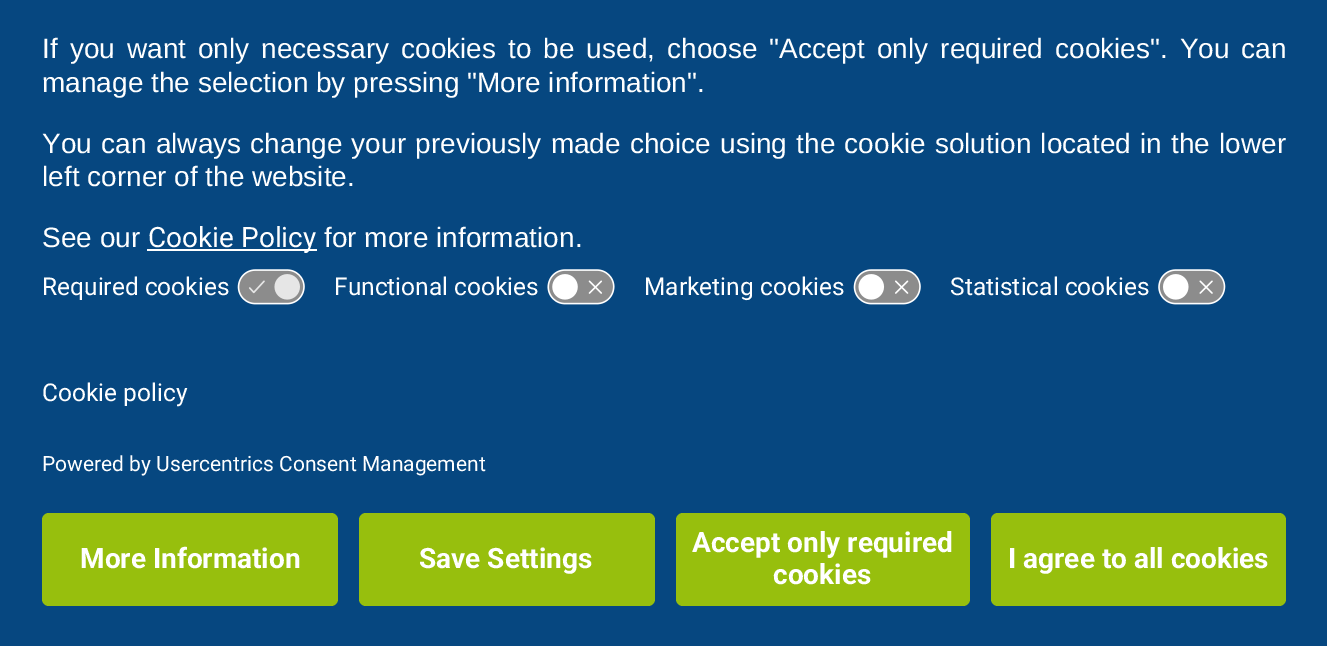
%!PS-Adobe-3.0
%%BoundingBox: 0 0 1327 646
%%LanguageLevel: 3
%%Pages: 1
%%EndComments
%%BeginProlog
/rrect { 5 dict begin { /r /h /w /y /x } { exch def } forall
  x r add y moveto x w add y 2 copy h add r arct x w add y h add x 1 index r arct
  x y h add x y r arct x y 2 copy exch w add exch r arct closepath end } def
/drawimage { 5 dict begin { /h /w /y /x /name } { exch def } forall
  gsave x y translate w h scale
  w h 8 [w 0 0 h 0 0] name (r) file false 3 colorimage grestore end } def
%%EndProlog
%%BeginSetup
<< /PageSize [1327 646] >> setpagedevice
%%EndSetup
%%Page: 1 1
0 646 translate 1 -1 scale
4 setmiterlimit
0.024 0.278 0.502 setrgbcolor
0 0 1327 646 rectfill
1 setgray
147 249 170 2 rectfill
(images/1.raw) 237 269 68 36 drawimage
(images/2.raw) 547 269 68 36 drawimage
(images/3.raw) 853 269 68 36 drawimage
(images/4.raw) 1158 269 68 36 drawimage
0.592 0.749 0.051 setrgbcolor
42 513 296 93 7 rrect fill
359 513 296 93 7 rrect fill
676 513 294 93 7 rrect fill
991 513 295 93 7 rrect fill
/LiberationSans-Regular [28 0 0 -28 0 0] selectfont
1 setgray
42 58 moveto 4.25 0 32 (If you want only necessary cookies to be used, choose "Accept only required cookies". You can) widthshow
42 92 moveto (manage the selection by pressing "More information".) show
42 153 moveto 1.5 0 32 (You can always change your previously made choice using the cookie solution located in the lower) widthshow
42 186 moveto (left corner of the website.) show
42 247 moveto (See our) show
/Roboto-Regular [28 0 0 -28 0 0] selectfont
148 247 moveto (Cookie Policy) show
/LiberationSans-Regular [28 0 0 -28 0 0] selectfont
324 247 moveto (for more information.) show
/Roboto-Regular [24.5 0 0 -24.5 0 0] selectfont
42 295 moveto (Required cookies) show
334 295 moveto (Functional cookies) show
644 295 moveto (Marketing cookies) show
950 295 moveto (Statistical cookies) show
42 401 moveto (Cookie policy) show
/Roboto-Regular [21 0 0 -21 0 0] selectfont
42 471 moveto (Powered by Usercentrics Consent Management) show
/Roboto-Bold [28 0 0 -28 0 0] selectfont
80 568 moveto (More Information) show
419 568 moveto (Save Settings) show
692 552 moveto (Accept only required) show
773 584 moveto (cookies) show
1008 568 moveto (I agree to all cookies) show
showpage
%%EOF
